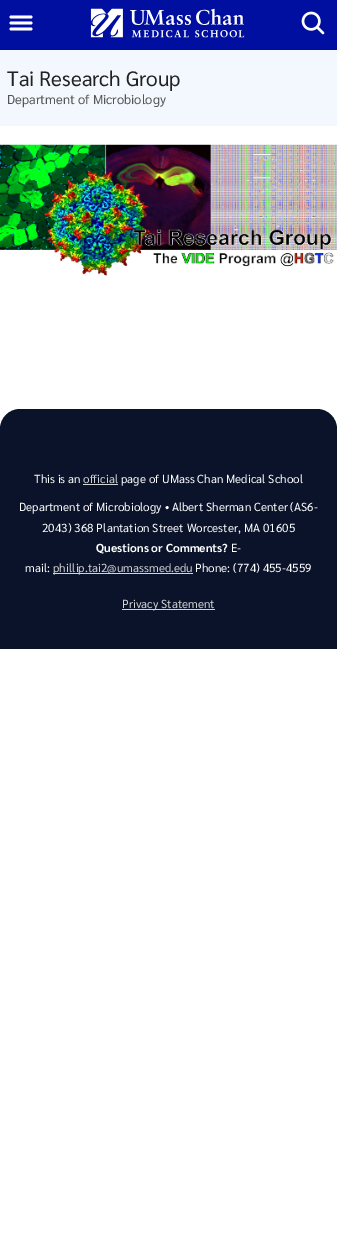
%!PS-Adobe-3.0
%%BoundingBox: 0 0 337 1246
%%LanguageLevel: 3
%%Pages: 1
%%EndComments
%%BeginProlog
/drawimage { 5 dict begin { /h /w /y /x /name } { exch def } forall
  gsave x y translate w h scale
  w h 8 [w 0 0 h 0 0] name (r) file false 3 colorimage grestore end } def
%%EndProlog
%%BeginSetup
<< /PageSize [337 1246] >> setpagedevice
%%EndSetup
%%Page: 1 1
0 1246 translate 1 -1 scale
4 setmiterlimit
1 setgray
0 0 337 1246 rectfill
0 0.059 0.624 setrgbcolor
0 0 337 50 rectfill
1 setgray
2.8 setlinewidth
1 setlinecap
newpath 11 17 moveto 31 17 lineto 11 23 moveto 31 23 lineto 11 29 moveto 31 29 lineto stroke
(images/1.raw) 90 8 155 30 drawimage
(images/2.raw) 301 11 24 24 drawimage
0.949 0.973 0.992 setrgbcolor
0 50 337 76 rectfill
(images/3.raw) 0 144 337 132 drawimage
0.039 0.075 0.161 setrgbcolor
newpath 20 409 moveto 317 409 lineto 328 409 337 418 337 429 curveto 337 649 lineto 0 649 lineto 0 429 lineto 0 418 9 409 20 409 curveto closepath fill
0.831 setgray
83 484 35 1 rectfill
53 573 140 1 rectfill
122 609 93 1 rectfill
/Sarabun-Regular [20.75 0 0 -20.75 0 0] selectfont
0.133 setgray
7 86 moveto (Tai Research Group) show
/Sarabun-Regular [13 0 0 -13 0 0] selectfont
0.333 setgray
7 104 moveto (Department of Microbiology) show
/Sarabun-Regular [11.7 0 0 -11.7 0 0] selectfont
1 setgray
34 483 moveto (This is an) show
0.831 setgray
83 483 moveto (official) show
1 setgray
121 483 moveto (page of UMass Chan Medical School) show
19 511 moveto (Department of Microbiology • Albert Sherman Center \(AS6-) show
42 532 moveto (2043\) 368 Plantation Street Worcester, MA 01605) show
/Sarabun-Bold [11.7 0 0 -11.7 0 0] selectfont
96 552 moveto (Questions or Comments?) show
/Sarabun-Regular [11.7 0 0 -11.7 0 0] selectfont
231 552 moveto (E-) show
25 572 moveto (mail:) show
0.831 setgray
53 572 moveto (phillip.tai2@umassmed.edu) show
1 setgray
195 572 moveto (Phone: \(774\) 455-4559) show
0.831 setgray
122 608 moveto (Privacy Statement) show
showpage
%%EOF
